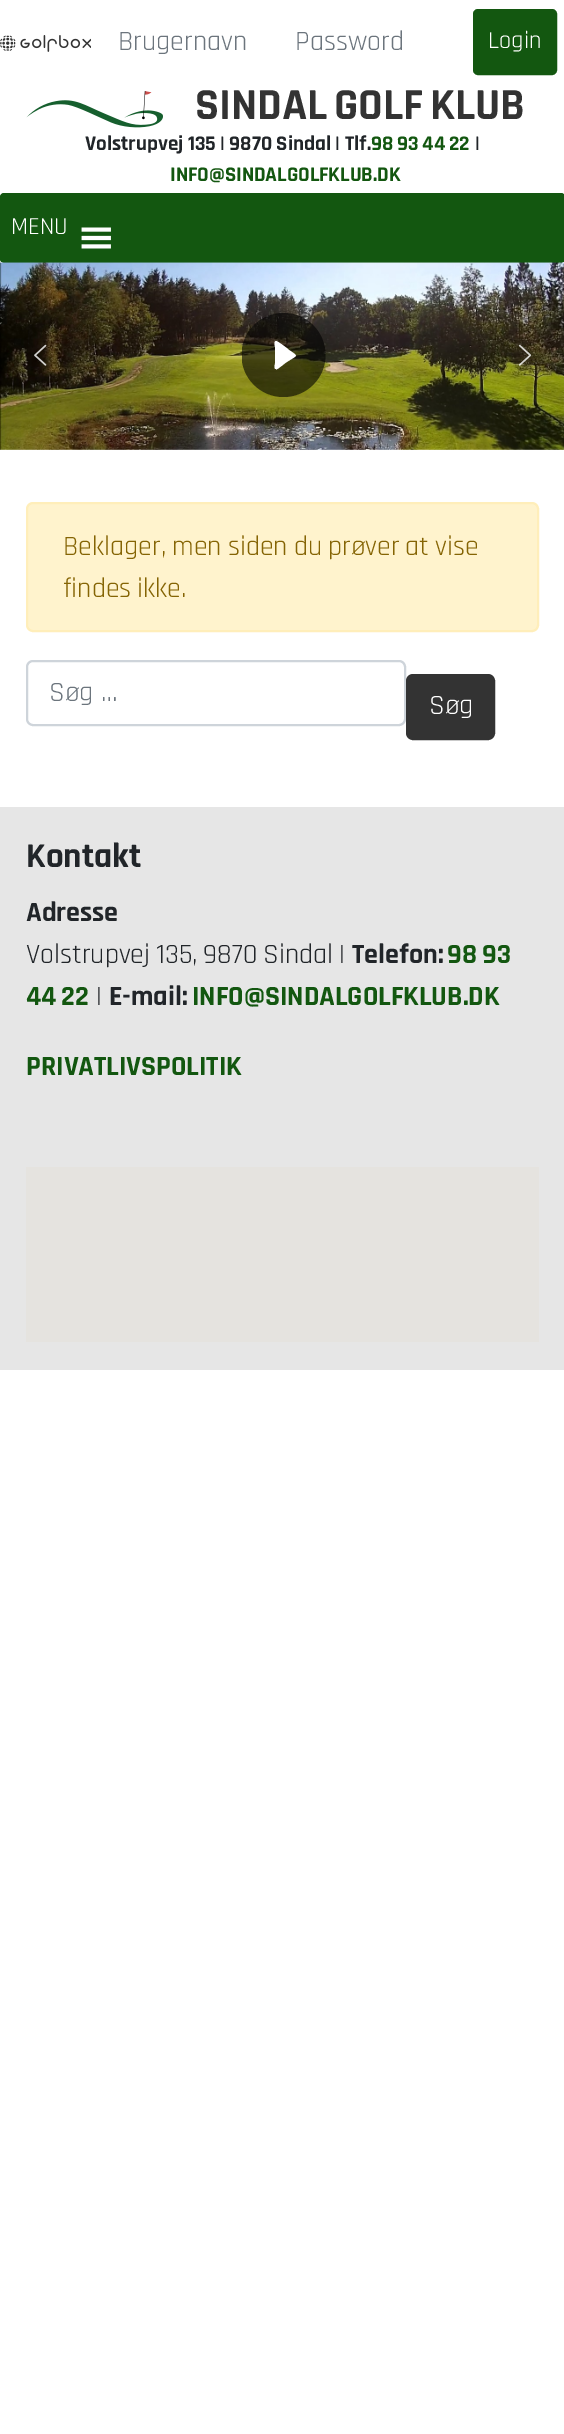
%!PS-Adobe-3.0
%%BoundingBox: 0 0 564 2434
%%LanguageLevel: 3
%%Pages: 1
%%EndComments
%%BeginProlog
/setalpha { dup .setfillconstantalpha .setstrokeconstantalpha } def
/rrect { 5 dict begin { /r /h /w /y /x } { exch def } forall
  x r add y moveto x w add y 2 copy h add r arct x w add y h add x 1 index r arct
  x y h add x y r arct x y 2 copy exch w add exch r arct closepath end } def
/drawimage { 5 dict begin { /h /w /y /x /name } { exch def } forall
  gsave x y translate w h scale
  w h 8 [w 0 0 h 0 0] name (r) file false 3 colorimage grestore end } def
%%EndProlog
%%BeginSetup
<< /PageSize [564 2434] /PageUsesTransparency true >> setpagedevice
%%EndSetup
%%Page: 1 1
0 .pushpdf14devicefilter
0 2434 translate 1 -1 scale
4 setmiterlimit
1 setgray
0 0 564 2434 rectfill
(images/1.raw) 0 35 91 17 drawimage
0.075 0.341 0.063 setrgbcolor
474 10 82 64 4 rrect gsave fill grestore
2 setlinewidth
stroke
(images/2.raw) 26 91 137 37 drawimage
0 193 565 70 4 rrect fill
(images/3.raw) 81 227 30 22 drawimage
(images/4.raw) 0 262 564 188 drawimage
gsave
242 313 84 84 rectclip
0.6 setalpha
0 setgray
newpath 283.5 355 42 0 360 arc closepath fill
grestore
1 setgray
newpath 276 369 moveto 273.5 369 275 364.5 275 363.5 curveto 275 347 lineto 275 346 273.5 341.5 276 341 curveto 277.5 341 287.5 348.5 289 350 curveto 299 357 298 354.5 286 362.5 curveto 284.5 363.5 277.5 369.5 276 369.5 curveto closepath fill
(images/5.raw) 34 344 13 22 drawimage
(images/6.raw) 518 344 14 22 drawimage
1 0.953 0.804 setrgbcolor
27 503 511 128 6 rrect gsave fill grestore
1 0.933 0.729 setrgbcolor
stroke
0.808 0.831 0.855 setrgbcolor
27 661 378 64 6 rrect stroke
0.2 setgray
407 675 87 64 6 rrect gsave fill grestore
stroke
0.902 setgray
0 807 564 563 rectfill
0.898 0.89 0.875 setrgbcolor
26 1167 513 175 rectfill
/Rajdhani-Regular [28 0 0 -28 0 0] selectfont
0.424 0.459 0.49 setrgbcolor
118 50 moveto (Brugernavn) show
295 50 moveto (Password) show
/Rajdhani-Regular [24.5 0 0 -24.5 0 0] selectfont
1 setgray
488 48 moveto (Login) show
/Rajdhani-Bold [44.75 0 0 -44.75 0 0] selectfont
0.2 setgray
195 119 moveto -3 0 32 (SINDAL GOLF KLUB) widthshow
/Rajdhani-Bold [21 0 0 -21 0 0] selectfont
0.129 0.145 0.161 setrgbcolor
85 150 moveto -0.25 0 32 (Volstrupvej 135 | 9870 Sindal | Tlf.) widthshow
0.075 0.341 0.063 setrgbcolor
371 150 moveto -1 0 32 (98 93 44 22) widthshow
0.129 0.145 0.161 setrgbcolor
475 150 moveto (|) show
0.075 0.341 0.063 setrgbcolor
170 181 moveto (INFO@SINDALGOLFKLUB.DK) show
/Rajdhani-Regular [24.5 0 0 -24.5 0 0] selectfont
1 setgray
11 234 moveto (MENU) show
/Rajdhani-Regular [28 0 0 -28 0 0] selectfont
0.522 0.392 0.016 setrgbcolor
63 555 moveto -1.5 0 32 (Beklager, men siden du prøver at vise) widthshow
63 597 moveto -2 0 32 (findes ikke.) widthshow
0.424 0.459 0.49 setrgbcolor
49 701 moveto (Søg …) show
1 setgray
429 714 moveto (Søg) show
/Rajdhani-Bold [35 0 0 -35 0 0] selectfont
0.129 0.145 0.161 setrgbcolor
26 867 moveto (Kontakt) show
/Rajdhani-Bold [28 0 0 -28 0 0] selectfont
26 921 moveto (Adresse) show
/Rajdhani-Regular [28 0 0 -28 0 0] selectfont
26 963 moveto -1.5 0 32 (Volstrupvej 135, 9870 Sindal |) widthshow
/Rajdhani-Bold [28 0 0 -28 0 0] selectfont
352 963 moveto (Telefon:) show
0.075 0.341 0.063 setrgbcolor
447 963 moveto -1 0 32 (98 93) widthshow
26 1005 moveto -1 0 32 (44 22) widthshow
/Rajdhani-Regular [28 0 0 -28 0 0] selectfont
0.129 0.145 0.161 setrgbcolor
96 1005 moveto (|) show
/Rajdhani-Bold [28 0 0 -28 0 0] selectfont
109 1005 moveto (E-mail:) show
0.075 0.341 0.063 setrgbcolor
192 1005 moveto (INFO@SINDALGOLFKLUB.DK) show
26 1075 moveto (PRIVATLIVSPOLITIK) show
.poppdf14devicefilter showpage
%%EOF
